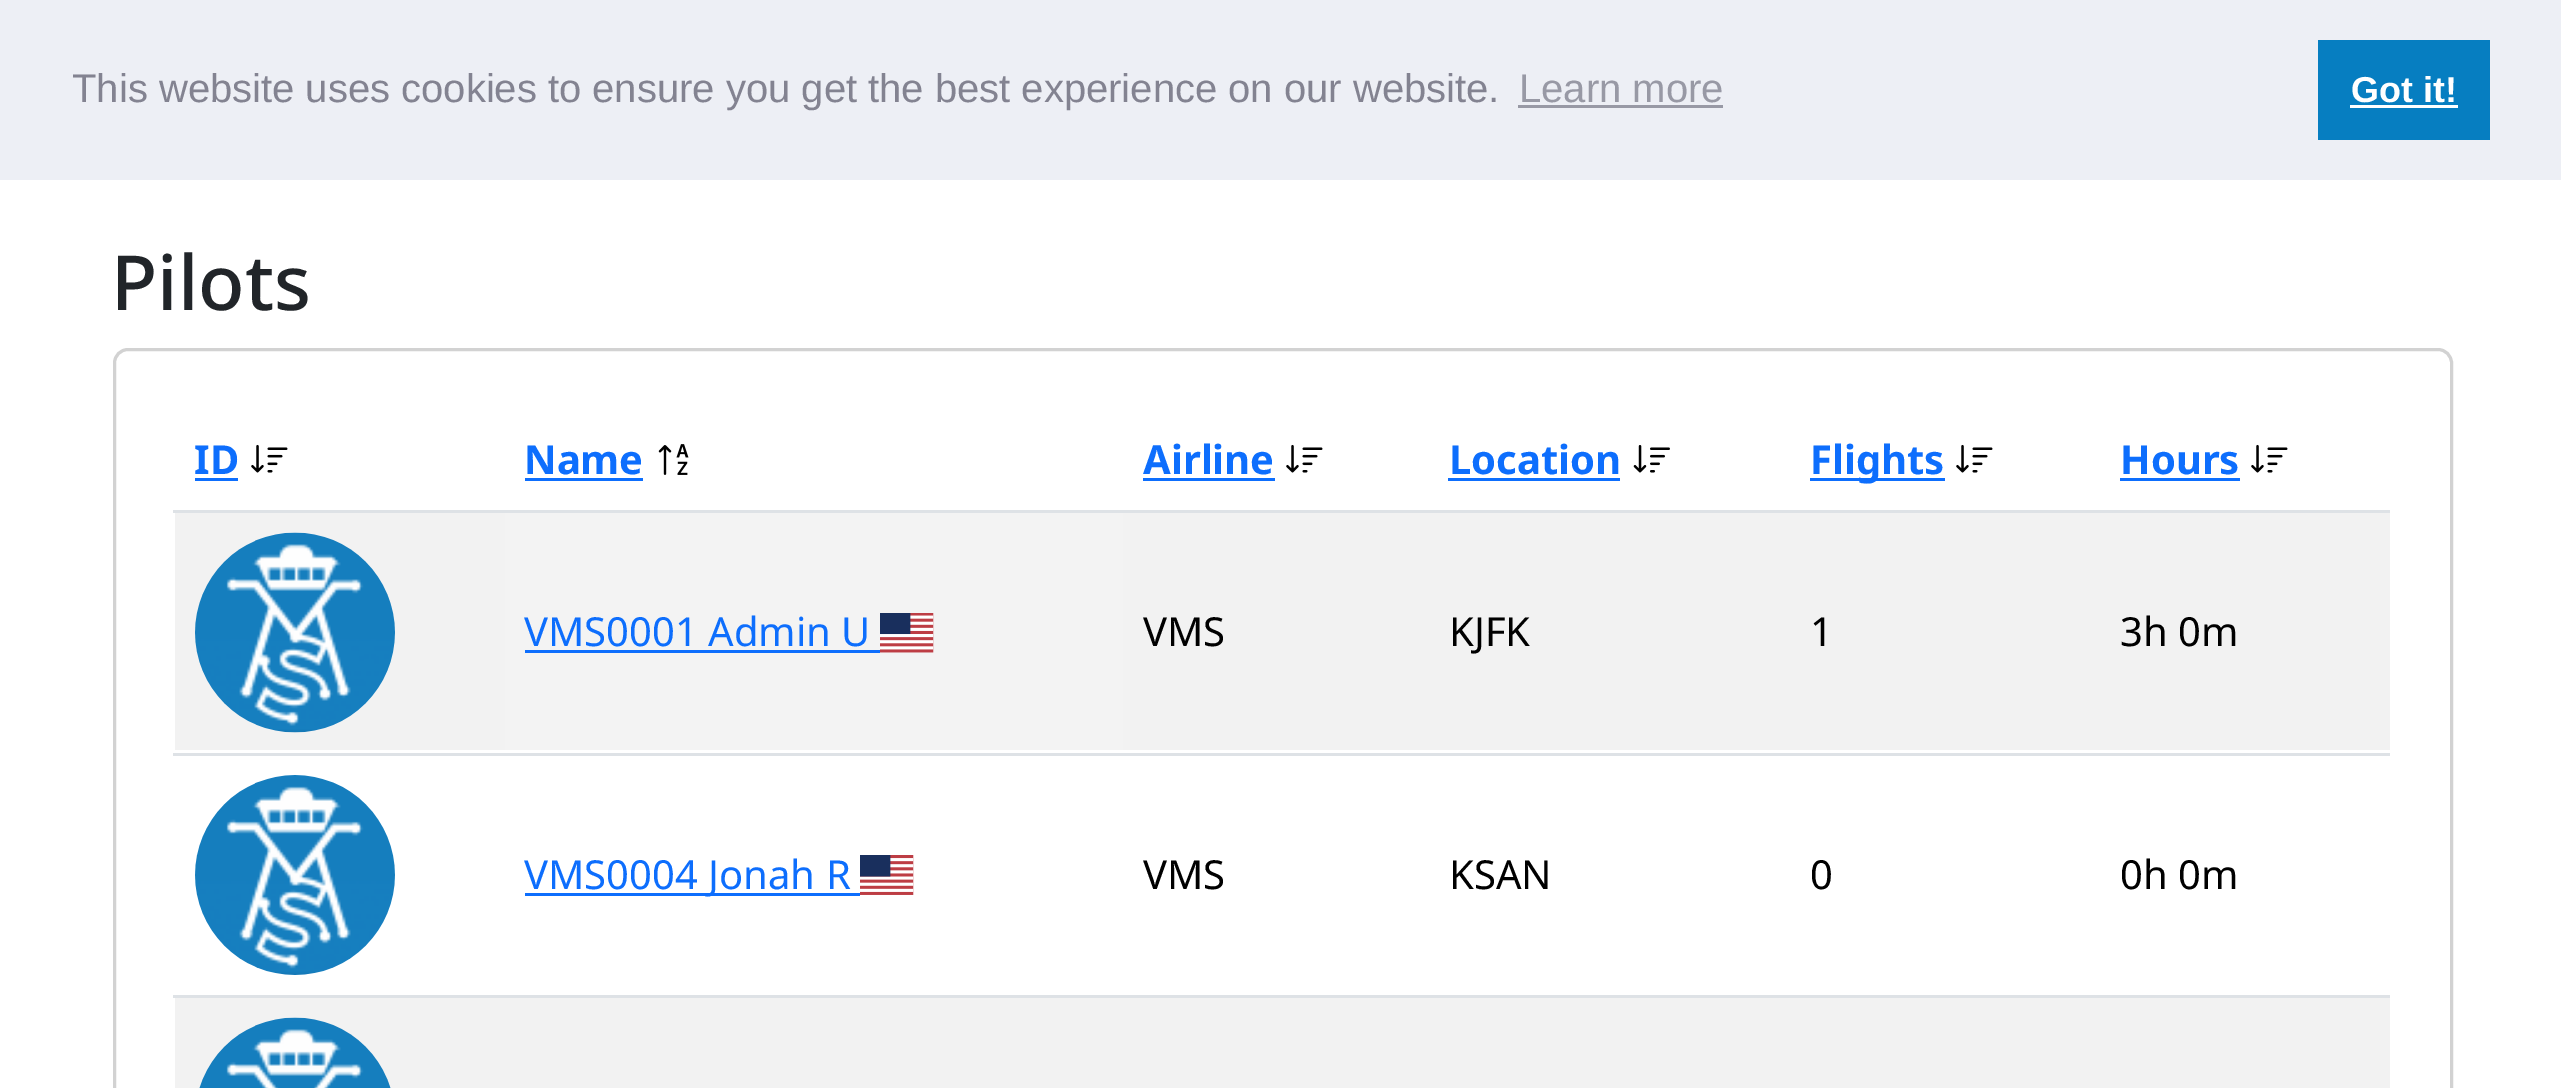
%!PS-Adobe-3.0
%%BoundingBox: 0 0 2561 1088
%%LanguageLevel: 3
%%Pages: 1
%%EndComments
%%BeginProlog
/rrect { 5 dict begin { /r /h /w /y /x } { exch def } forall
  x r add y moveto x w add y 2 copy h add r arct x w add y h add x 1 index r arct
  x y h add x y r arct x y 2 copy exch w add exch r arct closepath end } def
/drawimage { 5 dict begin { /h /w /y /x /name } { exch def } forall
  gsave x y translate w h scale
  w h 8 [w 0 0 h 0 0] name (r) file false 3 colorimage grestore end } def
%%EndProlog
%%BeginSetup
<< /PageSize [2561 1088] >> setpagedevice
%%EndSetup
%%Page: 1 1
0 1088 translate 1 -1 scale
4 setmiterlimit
1 setgray
0 0 2561 1088 rectfill
0.929 0.937 0.961 setrgbcolor
0 0 2561 180 rectfill
0.596 0.6 0.647 setrgbcolor
1518 105 205 3 rectfill
0.024 0.494 0.757 setrgbcolor
2318 40 172 100 rectfill
1 setgray
2350 105 108 3 rectfill
0.824 setgray
3 setlinewidth
114.5 349.5 2337 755 13.5 rrect stroke
0.051 0.431 0.992 setrgbcolor
195 478 43 3 rectfill
(images/1.raw) 251 444 37 29 drawimage
525 478 118 3 rectfill
(images/2.raw) 658 444 31 31 drawimage
1143 478 132 3 rectfill
(images/1.raw) 1286 444 37 29 drawimage
1448 478 172 3 rectfill
(images/3.raw) 1633 445 37 28 drawimage
1810 478 135 3 rectfill
(images/1.raw) 1956 444 37 29 drawimage
0.871 0.886 0.902 setrgbcolor
173 510 2217 3 rectfill
0.051 0.431 0.992 setrgbcolor
2120 478 120 3 rectfill
(images/1.raw) 2251 444 37 29 drawimage
0.949 setgray
175 513 330 237 rectfill
(images/4.raw) 195 532 200 201 drawimage
0.953 setgray
505 513 618 237 rectfill
0.051 0.431 0.992 setrgbcolor
525 650 355 3 rectfill
(images/5.raw) 880 613 54 40 drawimage
0.949 setgray
1123 513 1267 237 rectfill
0.871 0.886 0.902 setrgbcolor
173 753 2217 3 rectfill
(images/6.raw) 195 775 200 200 drawimage
0.051 0.431 0.992 setrgbcolor
525 893 335 3 rectfill
(images/7.raw) 860 855 54 40 drawimage
0.871 0.886 0.902 setrgbcolor
173 995 2217 3 rectfill
0.949 setgray
175 998 2215 90 rectfill
(images/8.raw) 199 1017 192 71 drawimage
/LiberationSans-Regular [40 0 0 -40 0 0] selectfont
0.514 0.514 0.569 setrgbcolor
72 102 moveto (This website uses cookies to ensure you get the best experience on our website.) show
0.596 0.6 0.647 setrgbcolor
1519 102 moveto (Learn more) show
/LiberationSans-Bold [36 0 0 -36 0 0] selectfont
1 setgray
2351 102 moveto (Got it!) show
/NotoSans-Medium [76 0 0 -76 0 0] selectfont
0.129 0.145 0.161 setrgbcolor
111 310 moveto (Pilots) show
/NotoSans-Bold [40 0 0 -40 0 0] selectfont
0.051 0.431 0.992 setrgbcolor
194 474 moveto (ID) show
524 474 moveto (Name) show
1143 474 moveto (Airline) show
1449 474 moveto (Location) show
1810 474 moveto (Flights) show
2120 474 moveto (Hours) show
/NotoSans-Regular [40 0 0 -40 0 0] selectfont
524 646 moveto (VMS0001 Admin U) show
0 setgray
1143 646 moveto (VMS) show
1449 646 moveto (KJFK) show
1810 646 moveto (1) show
2120 646 moveto (3h 0m) show
0.051 0.431 0.992 setrgbcolor
524 889 moveto (VMS0004 Jonah R) show
0 setgray
1143 889 moveto (VMS) show
1449 889 moveto (KSAN) show
1810 889 moveto (0) show
2120 889 moveto (0h 0m) show
showpage
%%EOF
